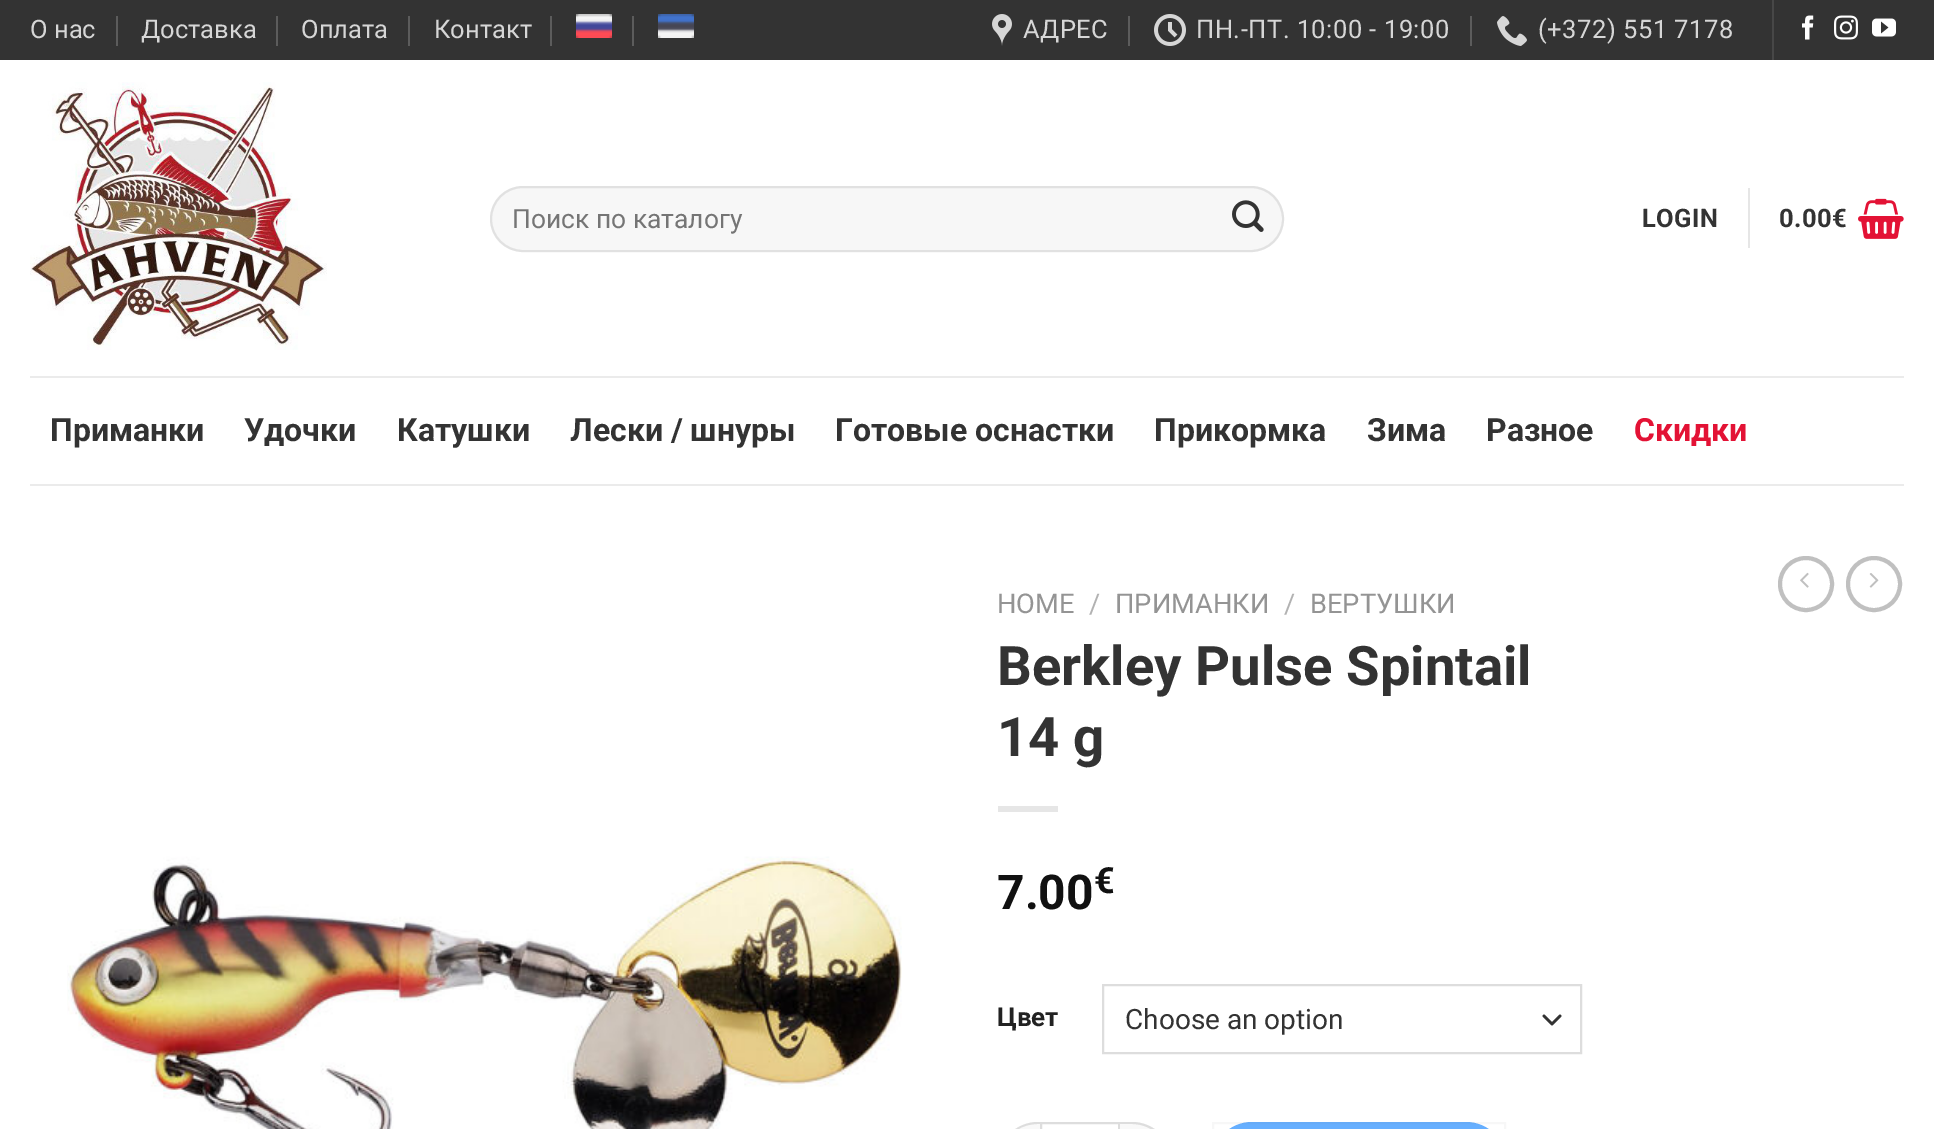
%!PS-Adobe-3.0
%%BoundingBox: 0 0 1934 1129
%%LanguageLevel: 3
%%Pages: 1
%%EndComments
%%BeginProlog
/setalpha { dup .setfillconstantalpha .setstrokeconstantalpha } def
/rrect { 5 dict begin { /r /h /w /y /x } { exch def } forall
  x r add y moveto x w add y 2 copy h add r arct x w add y h add x 1 index r arct
  x y h add x y r arct x y 2 copy exch w add exch r arct closepath end } def
/drawimage { 5 dict begin { /h /w /y /x /name } { exch def } forall
  gsave x y translate w h scale
  w h 8 [w 0 0 h 0 0] name (r) file false 3 colorimage grestore end } def
%%EndProlog
%%BeginSetup
<< /PageSize [1934 1129] /PageUsesTransparency true >> setpagedevice
%%EndSetup
%%Page: 1 1
0 .pushpdf14devicefilter
0 1129 translate 1 -1 scale
4 setmiterlimit
1 setgray
0 0 1934 1129 rectfill
0.2 setgray
0 0 1934 60 rectfill
0.361 setgray
116 16 2 30 rectfill
276 16 2 30 rectfill
408 16 2 30 rectfill
550 16 2 30 rectfill
(images/1.raw) 576 14 36 24 drawimage
632 16 2 30 rectfill
(images/2.raw) 658 14 36 24 drawimage
(images/3.raw) 992 14 20 32 drawimage
1128 16 2 30 rectfill
(images/4.raw) 1154 14 32 32 drawimage
1470 16 2 30 rectfill
(images/5.raw) 1497 16 30 30 drawimage
0.278 setgray
1772 0 2 60 rectfill
(images/6.raw) 1802 15 12 25 drawimage
(images/7.raw) 1834 15 24 25 drawimage
(images/8.raw) 1872 18 24 19 drawimage
(images/9.raw) 30 82 297 268 drawimage
0.969 setgray
490 186 794 66 33 rrect fill
0.09 setalpha
0 setgray
2 setlinewidth
491 187 792 64 32 rrect stroke
1 setalpha
(images/10.raw) 1232 200 32 32 drawimage
0.902 setgray
1748 188 2 60 rectfill
(images/11.raw) 1858 198 46 41 drawimage
0.922 setgray
30 376 1874 2 rectfill
30 484 1874 2 rectfill
0.753 setgray
4 setlinewidth
newpath 1806 584 26 0 360 arc closepath stroke
(images/12.raw) 1800 572 9 16 drawimage
newpath 1874 584 26 0 360 arc closepath stroke
(images/13.raw) 1869 573 10 15 drawimage
(images/14.raw) 67 856 835 273 drawimage
0.902 setgray
998 806 60 6 rectfill
0.2 setgray
2.7 setlinewidth
1 setlinecap
1 setlinejoin
newpath 1544 1016 moveto 1552 1024 lineto 1560 1016 lineto stroke
0.867 setgray
2 setlinewidth
0 setlinecap
0 setlinejoin
1103 985 478 68 rectstroke
0.976 setgray
newpath 1038 1122 moveto 1040 1122 lineto 1040 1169 lineto 1038 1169 lineto 1016 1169 998 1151 998 1129 curveto 998 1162 lineto 998 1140 1016 1122 1038 1122 curveto closepath fill
0.867 setgray
newpath 1038 1122 moveto 1040 1122 lineto 1040 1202 lineto 1038 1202 lineto 1016 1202 998 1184 998 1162 curveto 998 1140 1016 1122 1038 1122 curveto closepath 1038 1124 moveto 1040 1124 lineto 1040 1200 lineto 1001 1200 985 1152 1017 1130 curveto 1023 1126 1030 1124 1038 1124 curveto closepath eofill
1041 1123 78 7 rectstroke
0.976 setgray
newpath 1120 1122 moveto 1132 1122 lineto 1154 1122 1172 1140 1172 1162 curveto 1172 1129 lineto 1172 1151 1154 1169 1132 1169 curveto 1120 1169 lineto closepath fill
0.867 setgray
newpath 1120 1122 moveto 1132 1122 lineto 1154 1122 1172 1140 1172 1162 curveto 1172 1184 1154 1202 1132 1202 curveto 1120 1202 lineto closepath 1120 1124 moveto 1132 1124 lineto 1153 1124 1170 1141 1170 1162 curveto 1170 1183 1153 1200 1132 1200 curveto 1120 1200 lineto closepath eofill
0.4 0.686 1 setrgbcolor
1212 1122 294 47 40 rrect fill
0.05 setalpha
0.4 setgray
1213 1123 292 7 rectstroke
/Roboto-Regular [25.5 0 0 -25.5 0 0] selectfont
1 setalpha
0.839 setgray
30 38 moveto (О нас) show
141 38 moveto (Доставка) show
301 38 moveto (Оплата) show
434 38 moveto (Контакт) show
1023 38 moveto 0.5 0 (АДРЕС) ashow
1196 38 moveto 0.5 0 (ПН.-ПТ. 10:00 - 19:00) ashow
1538 38 moveto 0.5 0 (\(+372\) 551 7178) ashow
/Roboto-Regular [26.4 0 0 -26.4 0 0] selectfont
0.459 setgray
512 228 moveto (Поиск по каталогу) show
/Roboto-Bold [25.5 0 0 -25.5 0 0] selectfont
0.2 setgray
1642 227 moveto 0.5 0 (LOGIN) ashow
1779 227 moveto 0.5 0 (0.00€) ashow
/Roboto-Bold [32 0 0 -32 0 0] selectfont
50 441 moveto (Приманки) show
244 441 moveto (Удочки) show
397 441 moveto (Катушки) show
570 441 moveto (Лески / шнуры) show
835 441 moveto (Готовые оснастки) show
1154 441 moveto (Прикормка) show
1367 441 moveto (Зима) show
1486 441 moveto (Разное) show
0.89 0.071 0.208 setrgbcolor
1634 441 moveto (Скидки) show
/Roboto-Regular [27.25 0 0 -27.25 0 0] selectfont
0.58 setgray
997 613 moveto (HOME) show
0.698 setgray
1089 613 moveto (/) show
0.58 setgray
1115 613 moveto (ПРИМАНКИ) show
0.698 setgray
1284 613 moveto (/) show
0.58 setgray
1310 613 moveto (ВЕРТУШКИ) show
/Roboto-Bold [54.5 0 0 -54.5 0 0] selectfont
0.2 setgray
997 685 moveto (Berkley Pulse Spintail) show
997 756 moveto (14 g) show
/Roboto-Bold [48 0 0 -48 0 0] selectfont
0.067 setgray
997 909 moveto (7.00) show
/Roboto-Bold [36 0 0 -36 0 0] selectfont
1094 893 moveto (€) show
/Roboto-Bold [26 0 0 -26 0 0] selectfont
0.133 setgray
997 1026 moveto (Цвет) show
/Roboto-Regular [28 0 0 -28 0 0] selectfont
0.2 setgray
1125 1029 moveto (Choose an option) show
.poppdf14devicefilter showpage
%%EOF
